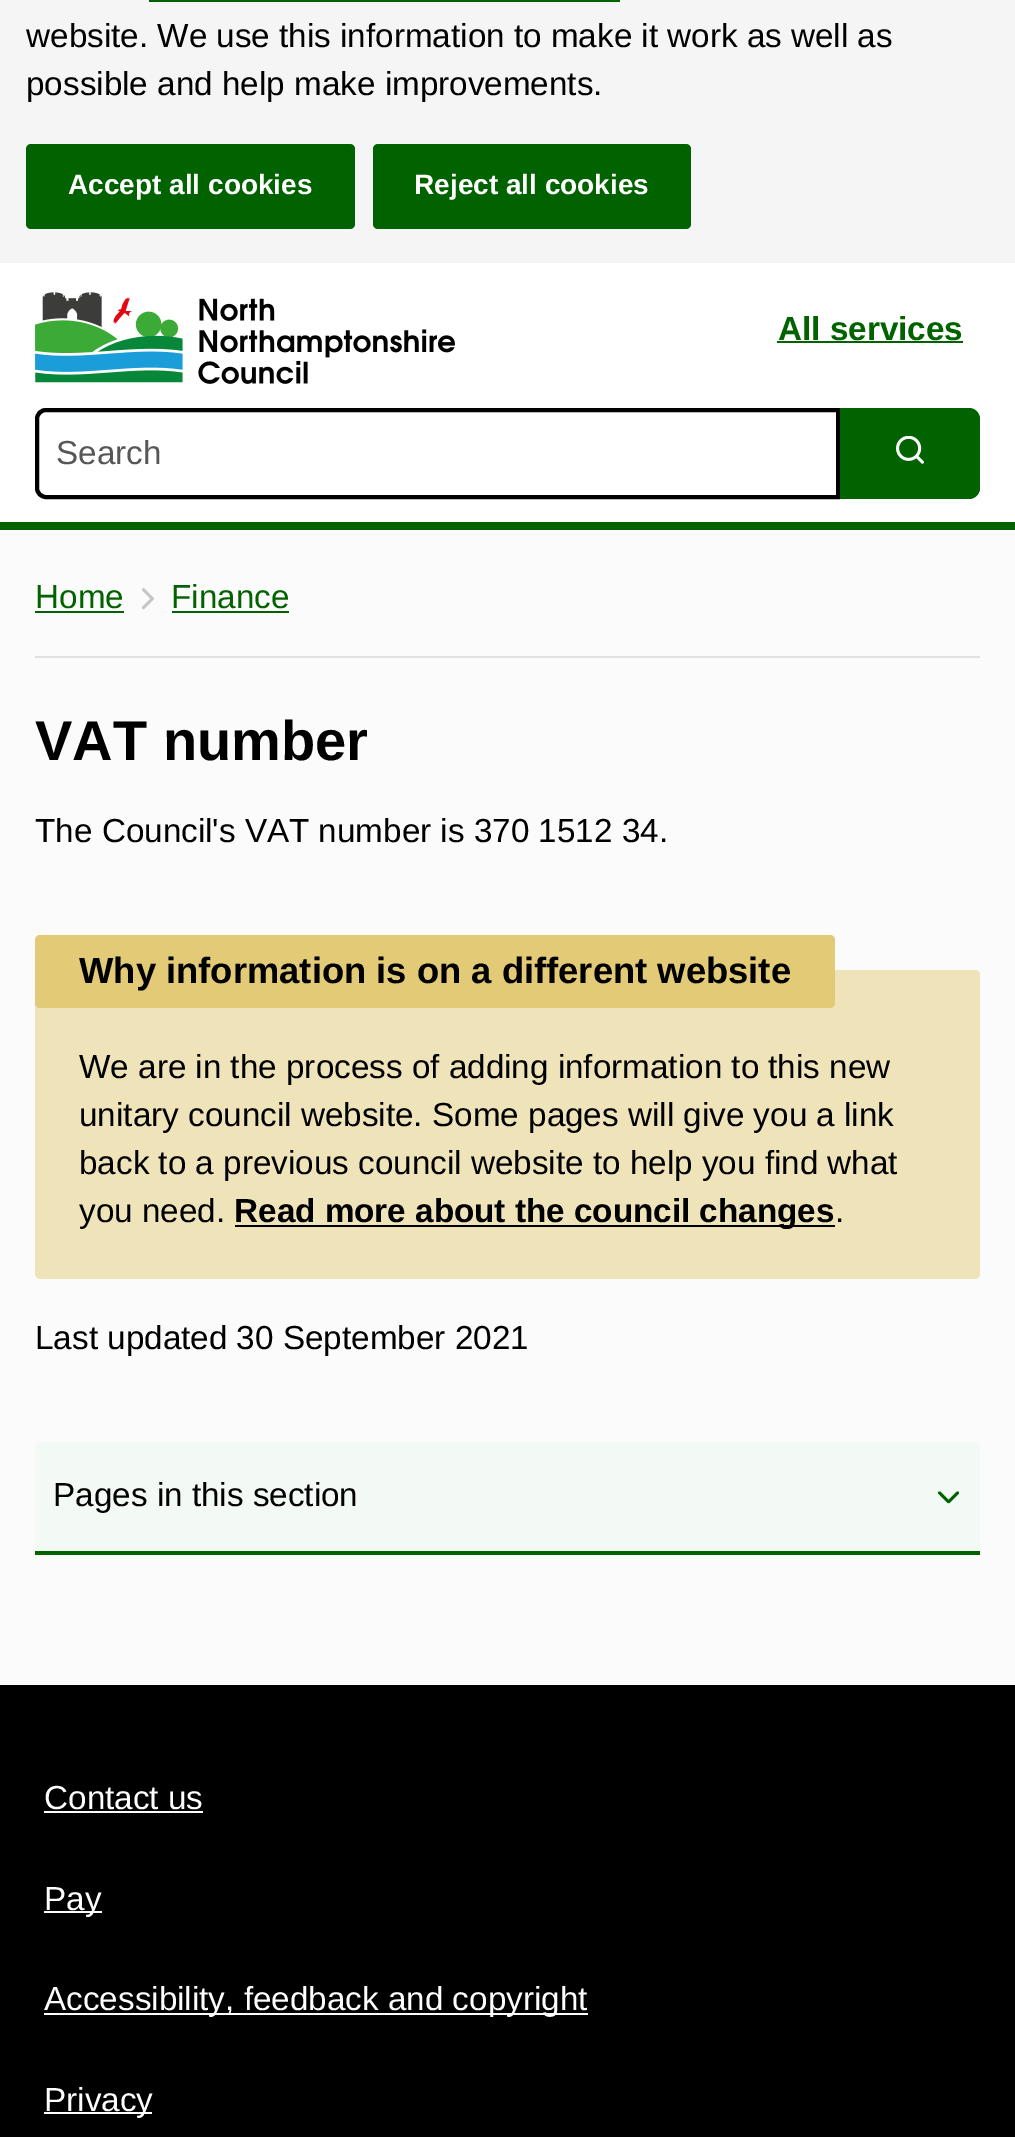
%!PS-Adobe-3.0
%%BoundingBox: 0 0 1015 2137
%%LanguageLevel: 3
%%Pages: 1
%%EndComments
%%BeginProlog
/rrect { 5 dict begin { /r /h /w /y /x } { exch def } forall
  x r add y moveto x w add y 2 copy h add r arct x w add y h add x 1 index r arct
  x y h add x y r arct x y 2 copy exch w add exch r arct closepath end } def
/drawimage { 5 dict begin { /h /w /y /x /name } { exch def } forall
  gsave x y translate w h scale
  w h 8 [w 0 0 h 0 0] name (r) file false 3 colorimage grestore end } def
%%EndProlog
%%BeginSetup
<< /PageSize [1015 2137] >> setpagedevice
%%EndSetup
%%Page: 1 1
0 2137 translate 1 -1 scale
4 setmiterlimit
0.984 setgray
0 0 1015 2137 rectfill
0.961 setgray
0 0 1015 263 rectfill
0.004 0.384 0 setrgbcolor
149 0 471 2 rectfill
26 144 329 85 5 rrect fill
373 144 318 85 5 rrect fill
1 setgray
0 263 1015 259 rectfill
0.004 0.384 0 setrgbcolor
0 522 1015 8 rectfill
(images/1.raw) 35 292 420 92 drawimage
777 341 186 2 rectfill
0 setgray
4 setlinewidth
newpath 46 410 moveto 838 410 lineto 838 497 lineto 46 497 lineto 41 497 37 493 37 488 curveto 37 419 lineto 37 414 41 410 46 410 curveto closepath stroke
0.004 0.384 0 setrgbcolor
newpath 840 408 moveto 969 408 lineto 975 408 980 413 980 419 curveto 980 488 lineto 980 494 975 499 969 499 curveto 840 499 lineto closepath fill
(images/2.raw) 896 436 28 28 drawimage
0.882 setgray
35 656 945 2 rectfill
0.004 0.384 0 setrgbcolor
35 611 89 2 rectfill
(images/3.raw) 142 588 12 22 drawimage
172 611 117 2 rectfill
0.937 0.89 0.725 setrgbcolor
35 970 945 309 5 rrect fill
0.886 0.792 0.463 setrgbcolor
35 935 800 73 5 rrect fill
0 setgray
235 1225 600 2 rectfill
0.953 0.976 0.961 setrgbcolor
35 1442 945 112 5 rrect fill
0.004 0.384 0 setrgbcolor
35 1551 945 4 rectfill
(images/4.raw) 937 1491 22 13 drawimage
0 setgray
0 1685 1015 452 rectfill
1 setgray
44 1811 159 2 rectfill
44 1911 58 2 rectfill
44 2013 544 2 rectfill
44 2112 108 2 rectfill
/LiberationSans-Regular [33.25 0 0 -33.25 0 0] selectfont
0 setgray
26 47 moveto (website. We use this information to make it work as well as) show
26 95 moveto (possible and help make improvements.) show
/LiberationSans-Bold [28 0 0 -28 0 0] selectfont
1 setgray
68 194 moveto (Accept all cookies) show
414 194 moveto (Reject all cookies) show
/LiberationSans-Bold [33.25 0 0 -33.25 0 0] selectfont
0.004 0.384 0 setrgbcolor
778 340 moveto (All services) show
/LiberationSans-Regular [33.25 0 0 -33.25 0 0] selectfont
0.345 0.337 0.337 setrgbcolor
56 464 moveto (Search) show
0.004 0.384 0 setrgbcolor
35 608 moveto (Home) show
171 608 moveto (Finance) show
/LiberationSans-Bold [56 0 0 -56 0 0] selectfont
0 setgray
35 760 moveto (VAT number) show
/LiberationSans-Regular [33.25 0 0 -33.25 0 0] selectfont
35 842 moveto (The Council's VAT number is 370 1512 34.) show
/LiberationSans-Bold [36.4 0 0 -36.4 0 0] selectfont
79 983 moveto (Why information is on a different website) show
/LiberationSans-Regular [33.25 0 0 -33.25 0 0] selectfont
79 1078 moveto (We are in the process of adding information to this new) show
79 1126 moveto (unitary council website. Some pages will give you a link) show
79 1174 moveto (back to a previous council website to help you find what) show
79 1222 moveto (you need.) show
/LiberationSans-Bold [33.25 0 0 -33.25 0 0] selectfont
234 1222 moveto (Read more about the council changes) show
/LiberationSans-Regular [33.25 0 0 -33.25 0 0] selectfont
835 1222 moveto (.) show
35 1349 moveto (Last updated 30 September 2021) show
53 1506 moveto (Pages in this section) show
1 setgray
44 1809 moveto (Contact us) show
44 1910 moveto (Pay) show
44 2010 moveto (Accessibility, feedback and copyright) show
44 2111 moveto (Privacy) show
showpage
%%EOF
